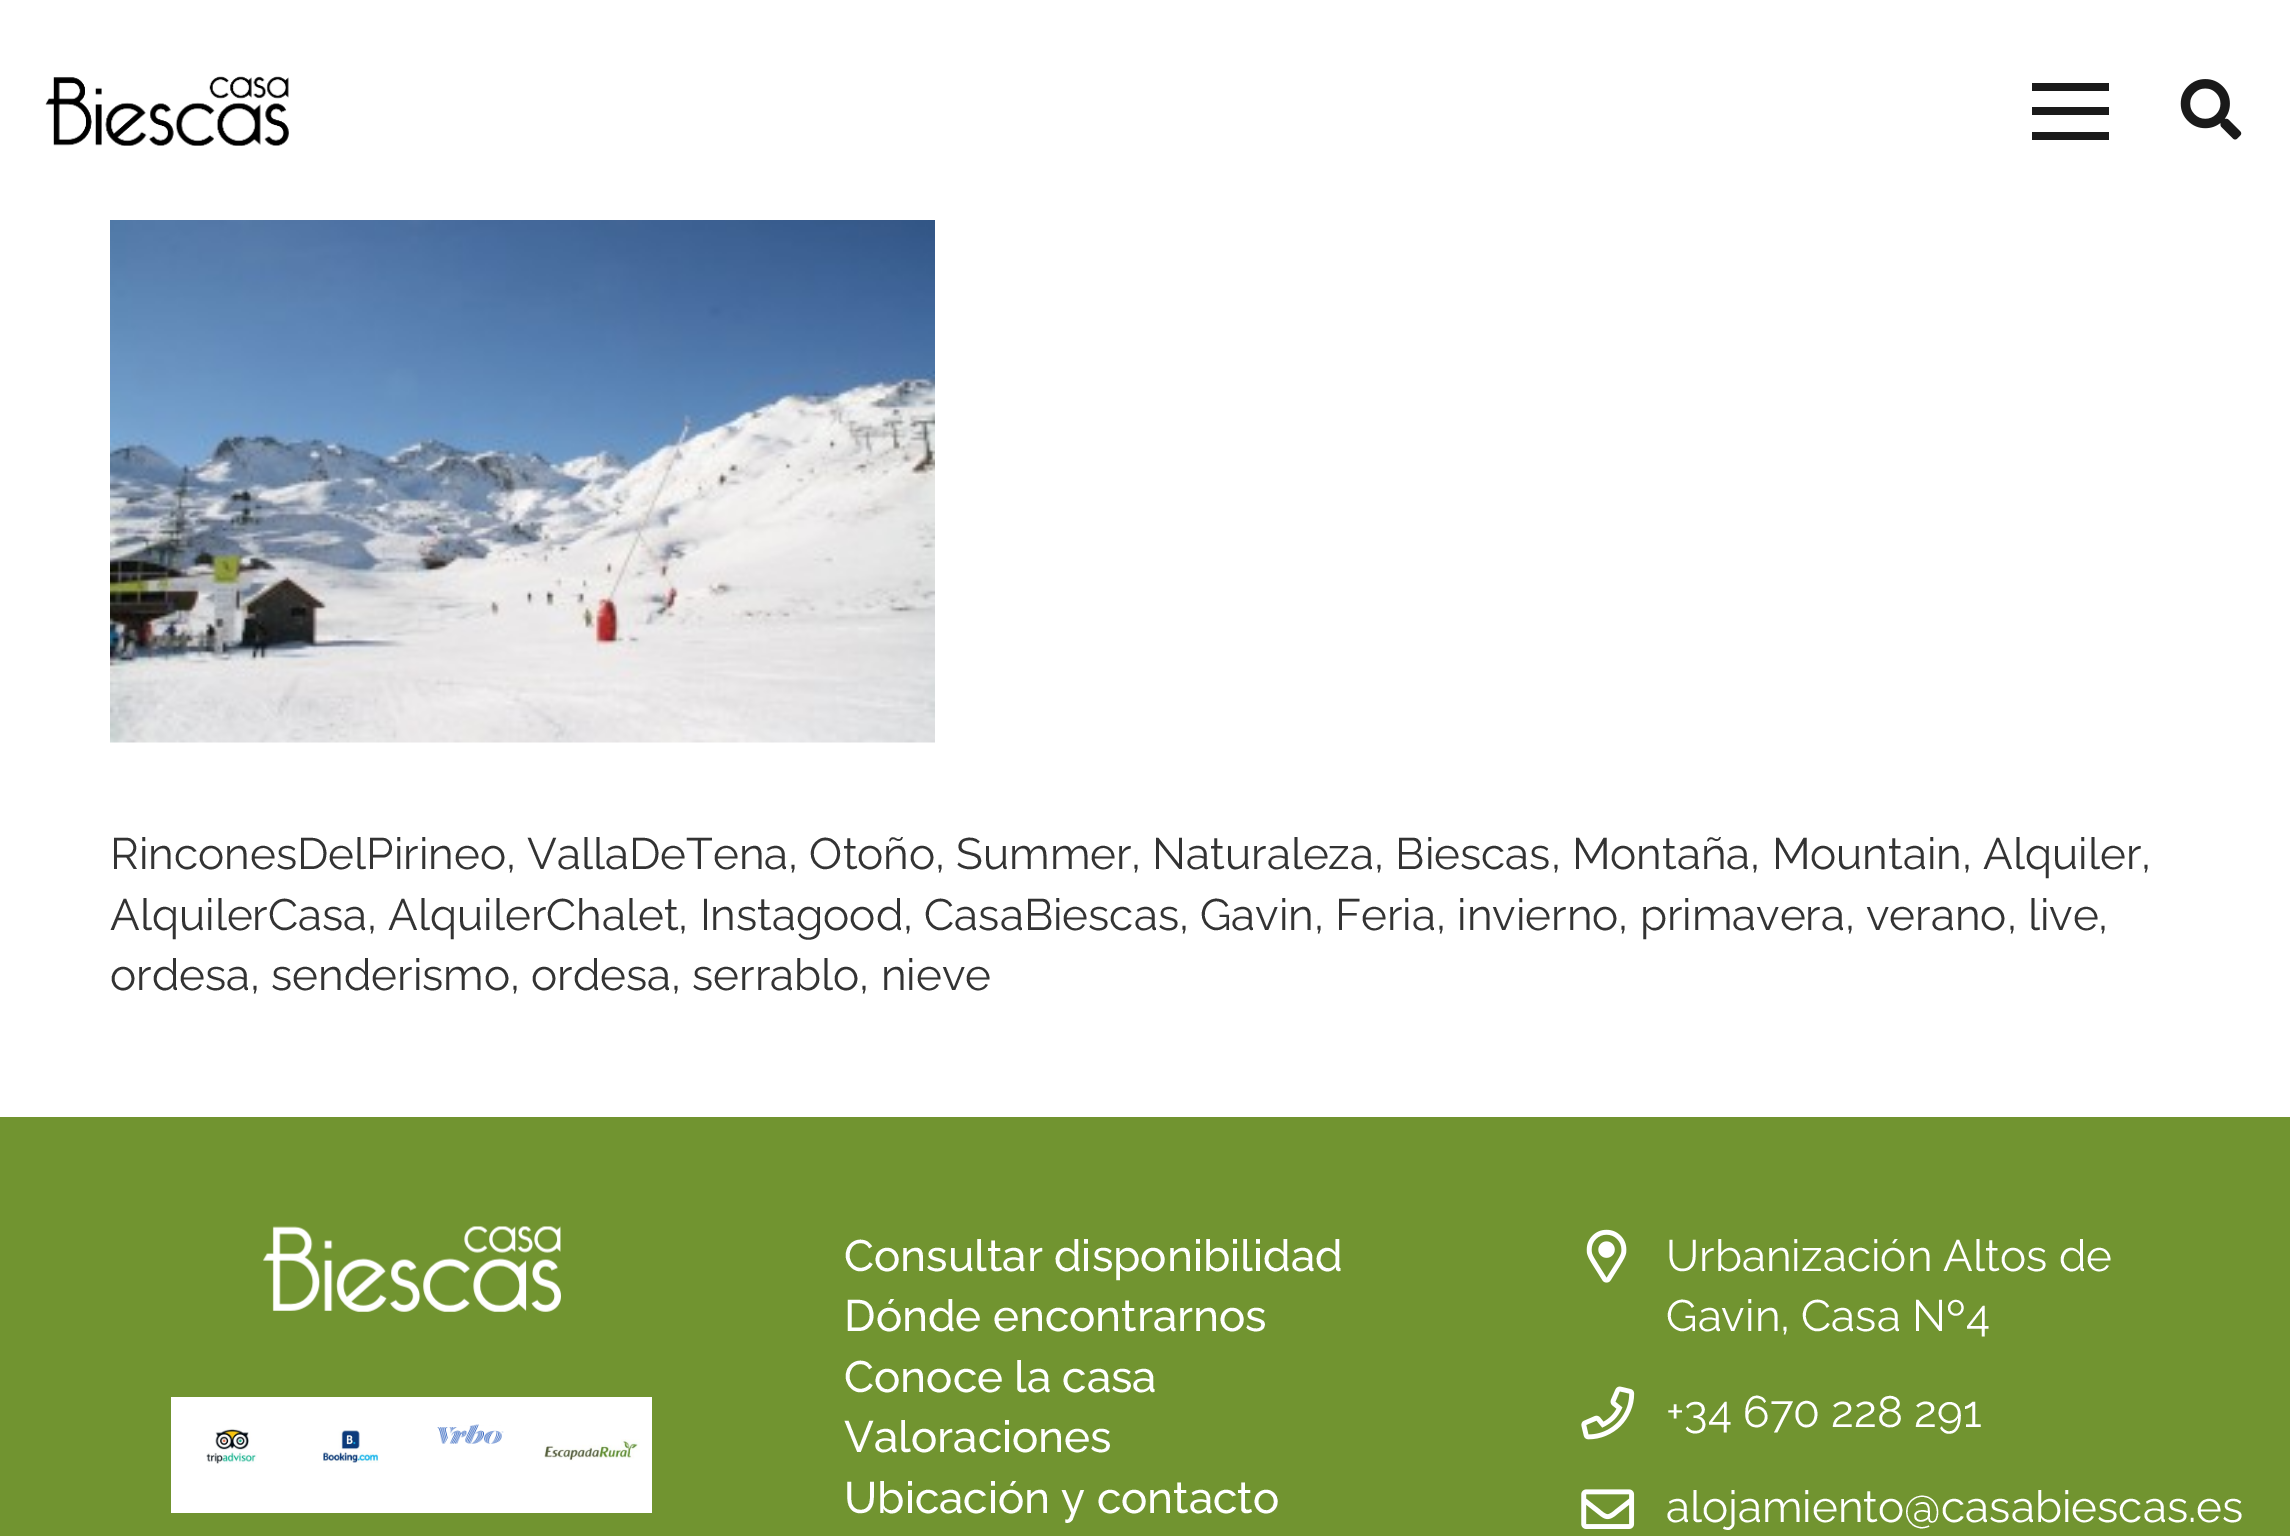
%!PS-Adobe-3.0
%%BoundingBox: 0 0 2290 1536
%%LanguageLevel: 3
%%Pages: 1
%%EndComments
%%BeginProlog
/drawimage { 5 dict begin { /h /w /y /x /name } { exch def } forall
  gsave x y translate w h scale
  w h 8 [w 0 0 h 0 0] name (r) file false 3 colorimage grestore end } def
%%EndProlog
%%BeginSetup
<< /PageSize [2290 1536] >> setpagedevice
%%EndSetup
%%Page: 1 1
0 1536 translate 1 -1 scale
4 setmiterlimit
1 setgray
0 0 2290 1536 rectfill
(images/1.raw) 45 76 244 70 drawimage
0.102 setgray
2032 107 77 8 rectfill
2032 83 77 8 rectfill
2032 132 77 8 rectfill
(images/2.raw) 2180 79 62 61 drawimage
(images/3.raw) 110 220 825 523 drawimage
0.443 0.58 0.188 setrgbcolor
0 1117 2290 419 rectfill
(images/4.raw) 263 1226 298 86 drawimage
1 setgray
171 1397 481 116 rectfill
(images/5.raw) 206 1428 51 36 drawimage
(images/6.raw) 323 1430 56 33 drawimage
(images/7.raw) 437 1424 67 20 drawimage
(images/8.raw) 544 1439 96 22 drawimage
(images/9.raw) 1586 1229 41 54 drawimage
(images/10.raw) 1581 1386 54 54 drawimage
(images/11.raw) 1581 1489 54 40 drawimage
/Raleway-Regular [44 0 0 -44 0 0] selectfont
0.2 setgray
110 869 moveto (RinconesDelPirineo, VallaDeTena, Otoño, Summer, Naturaleza, Biescas, Montaña, Mountain, Alquiler,) show
110 930 moveto (AlquilerCasa, AlquilerChalet, Instagood, CasaBiescas, Gavin, Feria, invierno, primavera, verano, live,) show
110 990 moveto (ordesa, senderismo, ordesa, serrablo, nieve) show
/Raleway-Medium [44 0 0 -44 0 0] selectfont
1 setgray
844 1271 moveto (Consultar disponibilidad) show
844 1331 moveto (Dónde encontrarnos) show
844 1392 moveto (Conoce la casa) show
844 1452 moveto (Valoraciones) show
844 1513 moveto (Ubicación y contacto) show
/Raleway-Regular [44 0 0 -44 0 0] selectfont
1666 1271 moveto (Urbanización Altos de) show
1666 1331 moveto (Gavin, Casa Nº4) show
1666 1427 moveto (+34 670 228 291) show
1666 1522 moveto (alojamiento@casabiescas.es) show
showpage
%%EOF
